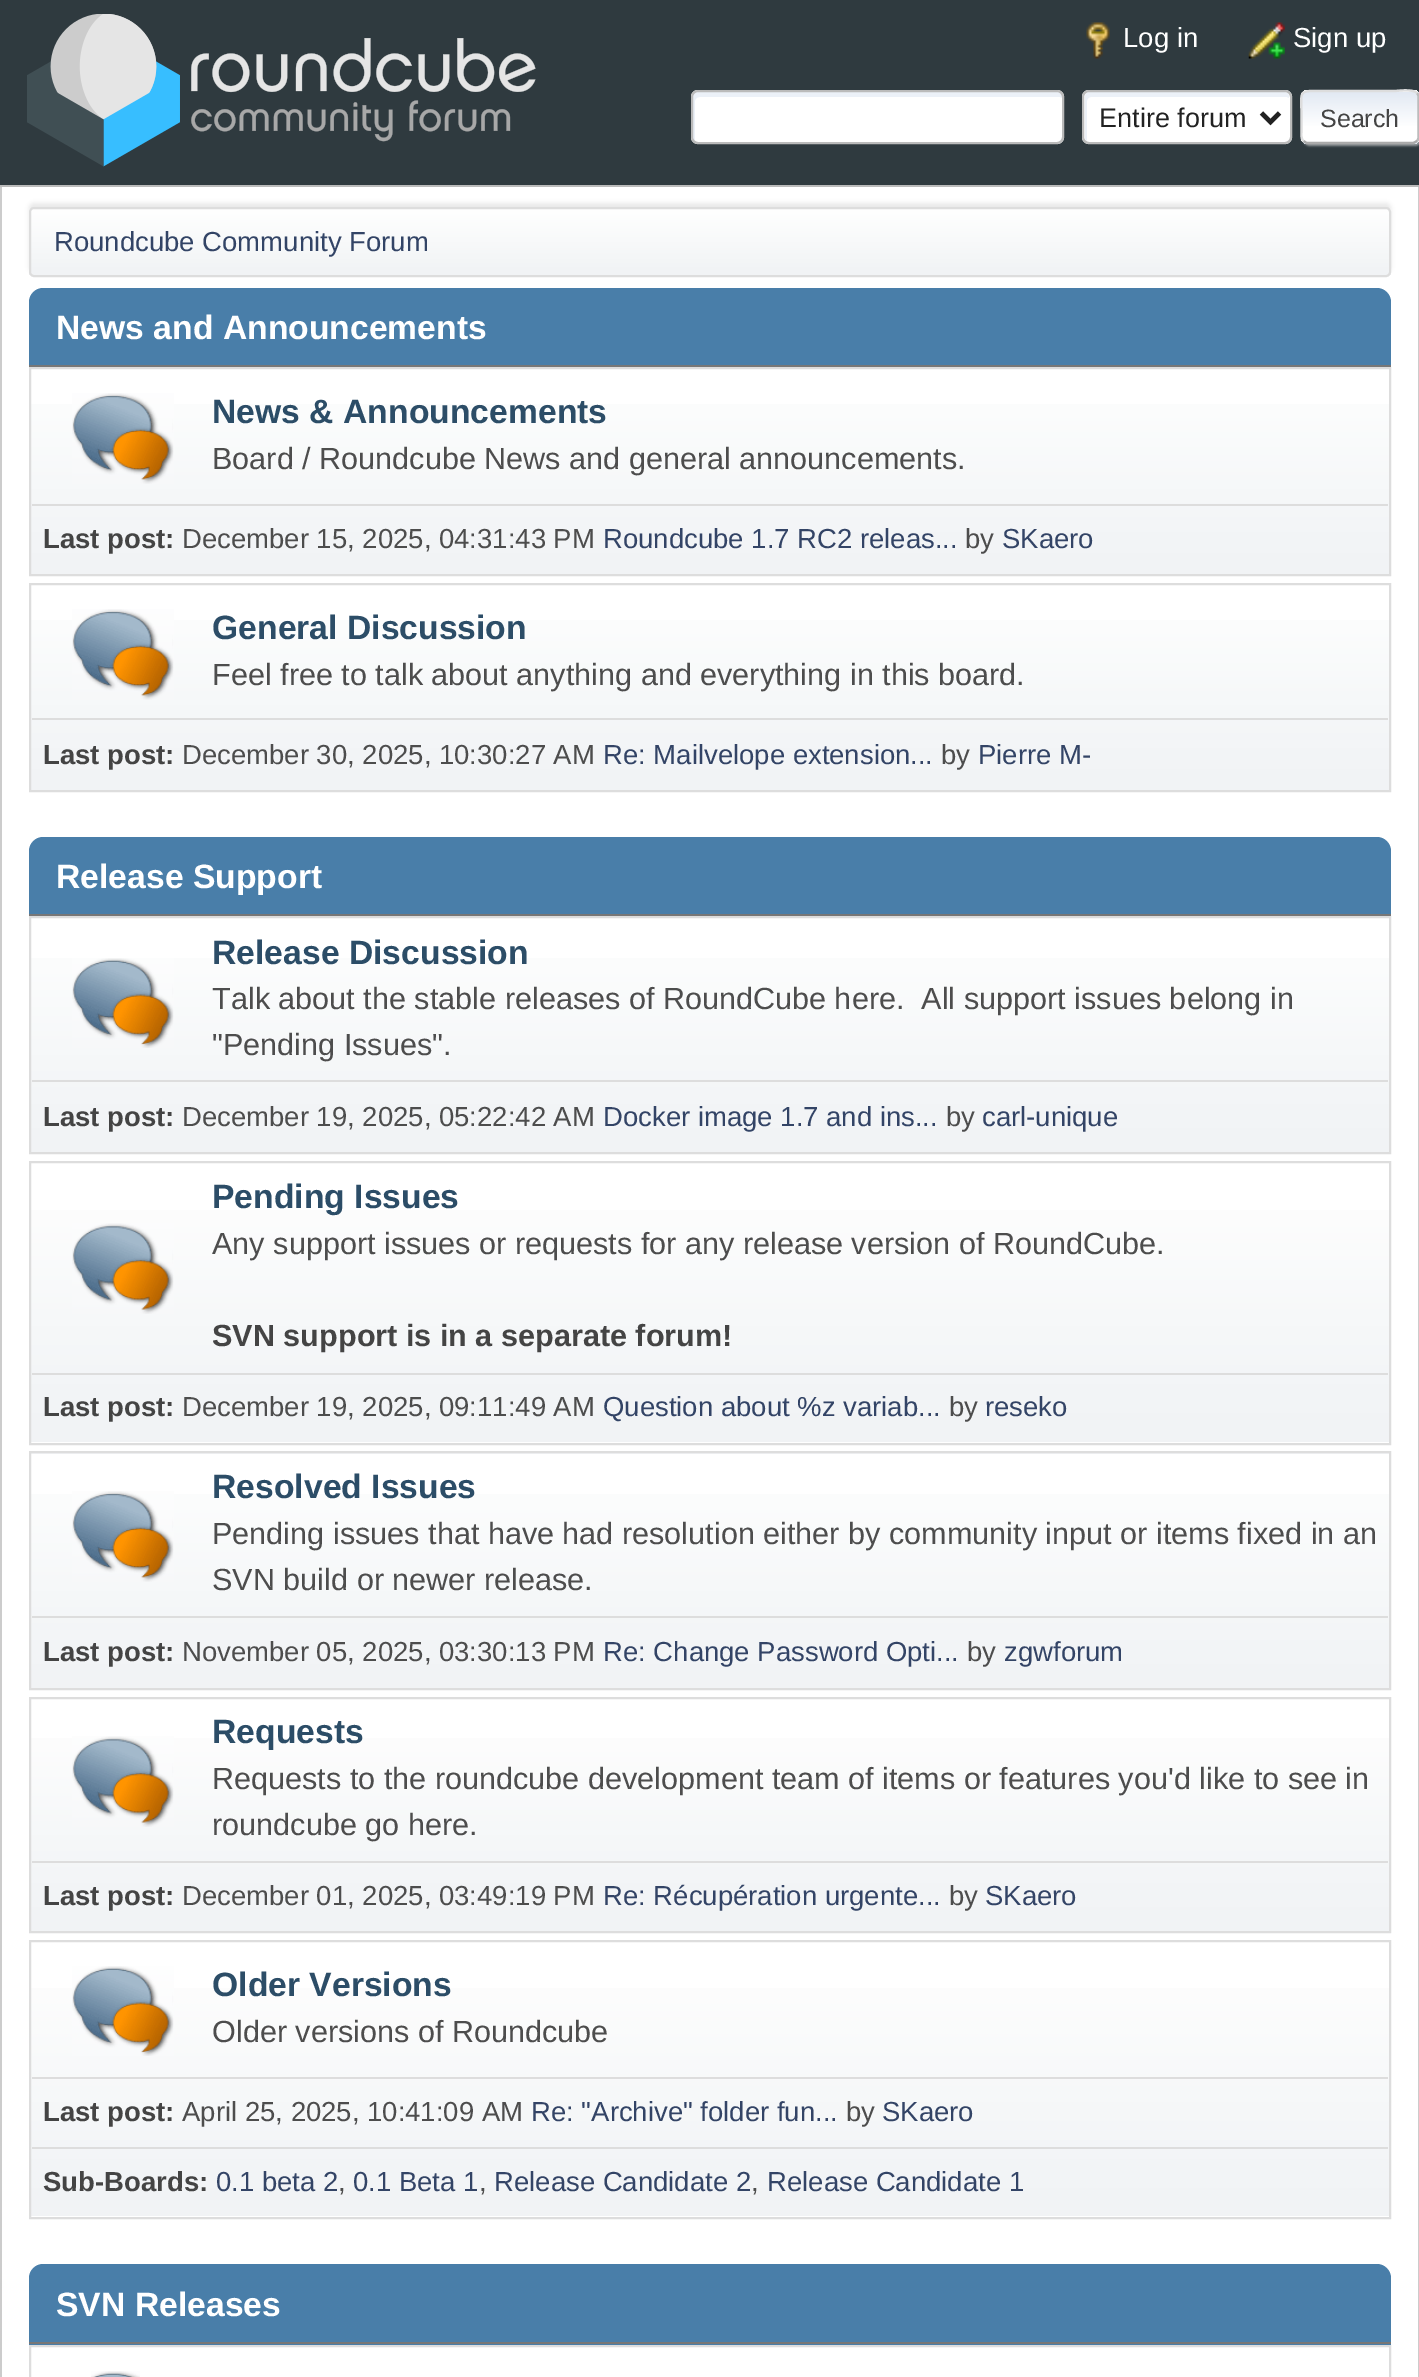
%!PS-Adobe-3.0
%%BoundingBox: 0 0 1419 2377
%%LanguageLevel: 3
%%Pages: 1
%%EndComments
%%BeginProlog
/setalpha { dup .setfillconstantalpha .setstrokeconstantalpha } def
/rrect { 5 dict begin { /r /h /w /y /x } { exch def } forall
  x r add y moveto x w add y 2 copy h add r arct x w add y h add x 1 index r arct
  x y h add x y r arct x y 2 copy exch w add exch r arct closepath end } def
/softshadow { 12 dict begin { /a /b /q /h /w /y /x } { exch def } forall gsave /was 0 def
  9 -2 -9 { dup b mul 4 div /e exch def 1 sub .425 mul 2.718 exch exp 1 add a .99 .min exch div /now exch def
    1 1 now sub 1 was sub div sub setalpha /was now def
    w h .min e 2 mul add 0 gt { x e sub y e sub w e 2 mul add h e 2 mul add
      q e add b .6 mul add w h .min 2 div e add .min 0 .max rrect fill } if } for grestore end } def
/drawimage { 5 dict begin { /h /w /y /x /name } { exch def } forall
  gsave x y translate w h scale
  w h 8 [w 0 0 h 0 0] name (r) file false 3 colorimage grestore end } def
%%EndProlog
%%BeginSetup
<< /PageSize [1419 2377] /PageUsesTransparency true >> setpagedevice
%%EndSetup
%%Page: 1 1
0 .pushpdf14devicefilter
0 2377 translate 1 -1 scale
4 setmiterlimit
0.184 0.227 0.247 setrgbcolor
0 0 1419 2377 rectfill
0.733 setgray
0 185 1419 2 rectfill
(images/1.raw) 27 14 509 153 drawimage
(images/2.raw) 1086 22 24 37 drawimage
(images/3.raw) 1248 22 37 37 drawimage
1 setgray
691 90 373 54 7 rrect fill
0.925 0.945 0.973 setrgbcolor
newpath 700 97 moveto 1060 97 lineto 1062 98 lineto 1062 97 lineto 1062 94 1060 92 1057 92 curveto 698 92 lineto 695 92 693 94 693 97 curveto 693 137 lineto 693 139 694 140 695 141 curveto 695 101 lineto 695 99 697 97 700 97 curveto closepath fill
0.733 setgray
2 setlinewidth
692 91 371 52 6 rrect stroke
1 setgray
1082 90 210 54 7 rrect fill
0.925 0.945 0.973 setrgbcolor
newpath 1091 97 moveto 1287 97 lineto 1289 98 lineto 1289 97 lineto 1289 94 1287 92 1284 92 curveto 1090 92 lineto 1087 92 1085 94 1085 97 curveto 1085 137 lineto 1085 139 1086 140 1087 141 curveto 1087 101 lineto 1087 99 1089 97 1091 97 curveto closepath fill
0.733 setgray
1083 91 208 52 6 rrect stroke
0.133 setgray
4.5 setlinewidth
newpath 1261.5 113 moveto 1270.5 122 lineto 1279.5 113 lineto stroke
0.867 setgray
1303 92 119 54 7 1 0.57 softshadow
gsave
1301 90 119 54 7 rrect clip newpath
gsave newpath 1301 90 moveto 1419 90 lineto 1419 92 lineto 1301 92 lineto closepath clip newpath
<< /ShadingType 2 /ColorSpace /DeviceRGB /Coords [1360 43 1360 92] /Extend [true true] /Function << /FunctionType 3 /Domain [0 1] /Functions [<< /FunctionType 2 /Domain [0 1] /C0 [0.886 0.914 0.953] /C1 [1 1 1] /N 1 >> << /FunctionType 2 /Domain [0 1] /C0 [1 1 1] /C1 [1 1 1] /N 1 >>] /Bounds [0.7] /Encode [0 1 0 1] >> >> shfill grestore
gsave newpath 1301 92 moveto 1419 92 lineto 1419 142 lineto 1301 142 lineto closepath clip newpath
<< /ShadingType 2 /ColorSpace /DeviceRGB /Coords [1360 92 1360 142] /Extend [true true] /Function << /FunctionType 3 /Domain [0 1] /Functions [<< /FunctionType 2 /Domain [0 1] /C0 [0.886 0.914 0.953] /C1 [1 1 1] /N 1 >> << /FunctionType 2 /Domain [0 1] /C0 [1 1 1] /C1 [1 1 1] /N 1 >>] /Bounds [0.7] /Encode [0 1 0 1] >> >> shfill grestore
gsave newpath 1301 142 moveto 1419 142 lineto 1419 144 lineto 1301 144 lineto closepath clip newpath
<< /ShadingType 2 /ColorSpace /DeviceRGB /Coords [1360 142 1360 191] /Extend [true true] /Function << /FunctionType 3 /Domain [0 1] /Functions [<< /FunctionType 2 /Domain [0 1] /C0 [0.886 0.914 0.953] /C1 [1 1 1] /N 1 >> << /FunctionType 2 /Domain [0 1] /C0 [1 1 1] /C1 [1 1 1] /N 1 >>] /Bounds [0.7] /Encode [0 1 0 1] >> >> shfill grestore
grestore
0.733 setgray
2.2 setlinewidth
newpath 1417 93 moveto 1418 94 1418.5 95.5 1418.5 97 curveto 1418.5 137 lineto 1418.5 138.5 1418 140 1417 141 curveto stroke
0.667 setgray
newpath 1417 141 moveto 1413.5 143 lineto 1306.5 143 lineto 1303.5 141 lineto stroke
0.867 setgray
newpath 1303.5 141 moveto 1300.5 138.5 1301.5 133.5 1301.5 130.5 curveto 1301.5 117 lineto 1301.5 88.5 1296.5 91 1325 91 curveto 1395.5 91 lineto 1396.5 91 1412.5 88.5 1417 93 curveto stroke
1 setgray
2 187 1416 2190 rectfill
0.8 setgray
1418 187 1 2190 rectfill
0 187 2 2190 rectfill
0 setgray
29 203 1362 69 5 2 0.08 softshadow
gsave
29 207 1362 70 5 rrect clip newpath
gsave newpath 29 209 moveto 1391 209 lineto 1391 275 lineto 29 275 lineto closepath clip newpath
<< /ShadingType 2 /ColorSpace /DeviceRGB /Coords [710 209 710 275] /Extend [true true] /Function << /FunctionType 3 /Domain [0 1] /Functions [<< /FunctionType 2 /Domain [0 1] /C0 [1 1 1] /C1 [0.945 0.953 0.961] /N 1 >> << /FunctionType 2 /Domain [0 1] /C0 [0.945 0.953 0.961] /C1 [0.945 0.953 0.961] /N 1 >>] /Bounds [0.95] /Encode [0 1 0 1] >> >> shfill grestore
grestore
0.867 setgray
2 setlinewidth
30 208 1360 68 4 rrect stroke
0.286 0.494 0.663 setrgbcolor
newpath 43 288 moveto 1377 288 lineto 1384.5 288 1391 294.5 1391 302 curveto 1391 367 lineto 29 367 lineto 29 302 lineto 29 294.5 35.5 288 43 288 curveto closepath fill
0.467 setgray
29 365 1362 2 rectfill
gsave newpath 31 404 moveto 1389 404 lineto 1389 574 lineto 31 574 lineto closepath clip newpath
<< /ShadingType 2 /ColorSpace /DeviceRGB /Coords [710 369 710 574] /Extend [true true] /Function << /FunctionType 3 /Domain [0 1] /Functions [<< /FunctionType 2 /Domain [0 1] /C0 [1 1 1] /C1 [0.945 0.953 0.961] /N 1 >> << /FunctionType 2 /Domain [0 1] /C0 [0.945 0.953 0.961] /C1 [0.945 0.953 0.961] /N 1 >>] /Bounds [0.95] /Encode [0 1 0 1] >> >> shfill grestore
0.867 setgray
30 368 1360 207 rectstroke
(images/4.raw) 72 393 102 91 drawimage
32 504 1356 2 rectfill
gsave newpath 31 620 moveto 1389 620 lineto 1389 790 lineto 31 790 lineto closepath clip newpath
<< /ShadingType 2 /ColorSpace /DeviceRGB /Coords [710 585 710 790] /Extend [true true] /Function << /FunctionType 3 /Domain [0 1] /Functions [<< /FunctionType 2 /Domain [0 1] /C0 [1 1 1] /C1 [0.945 0.953 0.961] /N 1 >> << /FunctionType 2 /Domain [0 1] /C0 [0.945 0.953 0.961] /C1 [0.945 0.953 0.961] /N 1 >>] /Bounds [0.95] /Encode [0 1 0 1] >> >> shfill grestore
30 584 1360 207 rectstroke
(images/4.raw) 72 609 102 91 drawimage
32 718 1356 2 rectfill
0.286 0.494 0.663 setrgbcolor
newpath 43 837 moveto 1377 837 lineto 1384.5 837 1391 843.5 1391 851 curveto 1391 916 lineto 29 916 lineto 29 851 lineto 29 843.5 35.5 837 43 837 curveto closepath fill
0.467 setgray
29 914 1362 2 rectfill
gsave newpath 31 958 moveto 1389 958 lineto 1389 1152 lineto 31 1152 lineto closepath clip newpath
<< /ShadingType 2 /ColorSpace /DeviceRGB /Coords [710 918 710 1152] /Extend [true true] /Function << /FunctionType 3 /Domain [0 1] /Functions [<< /FunctionType 2 /Domain [0 1] /C0 [1 1 1] /C1 [0.945 0.953 0.961] /N 1 >> << /FunctionType 2 /Domain [0 1] /C0 [0.945 0.953 0.961] /C1 [0.945 0.953 0.961] /N 1 >>] /Bounds [0.95] /Encode [0 1 0 1] >> >> shfill grestore
0.867 setgray
30 917 1360 236 rectstroke
(images/5.raw) 72 958 102 90 drawimage
32 1080 1356 2 rectfill
gsave newpath 31 1210 moveto 1389 1210 lineto 1389 1442 lineto 31 1442 lineto closepath clip newpath
<< /ShadingType 2 /ColorSpace /DeviceRGB /Coords [710 1163 710 1442] /Extend [true true] /Function << /FunctionType 3 /Domain [0 1] /Functions [<< /FunctionType 2 /Domain [0 1] /C0 [1 1 1] /C1 [0.945 0.953 0.961] /N 1 >> << /FunctionType 2 /Domain [0 1] /C0 [0.945 0.953 0.961] /C1 [0.945 0.953 0.961] /N 1 >>] /Bounds [0.95] /Encode [0 1 0 1] >> >> shfill grestore
30 1162 1360 282 rectstroke
(images/6.raw) 72 1223 102 91 drawimage
32 1373 1356 2 rectfill
gsave newpath 29 1453 moveto 1391 1453 lineto 1391 1454 lineto 29 1454 lineto closepath clip newpath
<< /ShadingType 2 /ColorSpace /DeviceRGB /Coords [710 1220 710 1454] /Extend [true true] /Function << /FunctionType 3 /Domain [0 1] /Functions [<< /FunctionType 2 /Domain [0 1] /C0 [1 1 1] /C1 [0.945 0.953 0.961] /N 1 >> << /FunctionType 2 /Domain [0 1] /C0 [0.945 0.953 0.961] /C1 [0.945 0.953 0.961] /N 1 >>] /Bounds [0.95] /Encode [0 1 0 1] >> >> shfill grestore
gsave newpath 31 1494 moveto 1389 1494 lineto 1389 1688 lineto 31 1688 lineto closepath clip newpath
<< /ShadingType 2 /ColorSpace /DeviceRGB /Coords [710 1454 710 1688] /Extend [true true] /Function << /FunctionType 3 /Domain [0 1] /Functions [<< /FunctionType 2 /Domain [0 1] /C0 [1 1 1] /C1 [0.945 0.953 0.961] /N 1 >> << /FunctionType 2 /Domain [0 1] /C0 [0.945 0.953 0.961] /C1 [0.945 0.953 0.961] /N 1 >>] /Bounds [0.95] /Encode [0 1 0 1] >> >> shfill grestore
30 1452 1360 237 rectstroke
(images/7.raw) 72 1491 102 91 drawimage
32 1616 1356 2 rectfill
gsave newpath 31 1738 moveto 1389 1738 lineto 1389 1931 lineto 31 1931 lineto closepath clip newpath
<< /ShadingType 2 /ColorSpace /DeviceRGB /Coords [710 1699 710 1931] /Extend [true true] /Function << /FunctionType 3 /Domain [0 1] /Functions [<< /FunctionType 2 /Domain [0 1] /C0 [1 1 1] /C1 [0.945 0.953 0.961] /N 1 >> << /FunctionType 2 /Domain [0 1] /C0 [0.945 0.953 0.961] /C1 [0.945 0.953 0.961] /N 1 >>] /Bounds [0.95] /Encode [0 1 0 1] >> >> shfill grestore
30 1698 1360 234 rectstroke
(images/8.raw) 72 1736 102 91 drawimage
32 1861 1356 2 rectfill
gsave newpath 31 1988 moveto 1389 1988 lineto 1389 2216 lineto 31 2216 lineto closepath clip newpath
<< /ShadingType 2 /ColorSpace /DeviceRGB /Coords [710 1942 710 2216] /Extend [true true] /Function << /FunctionType 3 /Domain [0 1] /Functions [<< /FunctionType 2 /Domain [0 1] /C0 [1 1 1] /C1 [0.945 0.953 0.961] /N 1 >> << /FunctionType 2 /Domain [0 1] /C0 [0.945 0.953 0.961] /C1 [0.945 0.953 0.961] /N 1 >>] /Bounds [0.95] /Encode [0 1 0 1] >> >> shfill grestore
30 1941 1360 277 rectstroke
(images/9.raw) 72 1966 102 90 drawimage
32 2077 1356 2 rectfill
32 2147 1356 2 rectfill
0.286 0.494 0.663 setrgbcolor
newpath 43 2264 moveto 1377 2264 lineto 1384.5 2264 1391 2270.5 1391 2278 curveto 1391 2345 lineto 29 2345 lineto 29 2278 lineto 29 2270.5 35.5 2264 43 2264 curveto closepath fill
0.467 setgray
29 2342 1362 2 rectfill
0.867 setgray
30 2346 1360 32 rectstroke
(images/10.raw) 91 2371 49 6 drawimage
/LiberationSans-Regular [27.5 0 0 -27.5 0 0] selectfont
1 setgray
1123 47 moveto (Log in) show
1293 47 moveto (Sign up) show
/LiberationSans-Regular [27 0 0 -27 0 0] selectfont
0.133 setgray
1099 127 moveto (Entire forum) show
/LiberationSans-Regular [25 0 0 -25 0 0] selectfont
0.267 setgray
1320 127 moveto (Search) show
/LiberationSans-Regular [27.5 0 0 -27.5 0 0] selectfont
0.2 0.267 0.4 setrgbcolor
54 251 moveto (Roundcube Community Forum) show
/LiberationSans-Bold [33.7 0 0 -33.7 0 0] selectfont
1 setgray
56 339 moveto (News and Announcements) show
0.173 0.302 0.404 setrgbcolor
212 423 moveto (News & Announcements) show
/LiberationSans-Regular [30.6 0 0 -30.6 0 0] selectfont
0.302 setgray
212 469 moveto (Board / Roundcube News and general announcements.) show
/LiberationSans-Bold [27.5 0 0 -27.5 0 0] selectfont
0.267 setgray
43 548 moveto (Last post:) show
/LiberationSans-Regular [27.5 0 0 -27.5 0 0] selectfont
0.302 setgray
182 548 moveto (December 15, 2025, 04:31:43 PM) show
0.2 0.267 0.4 setrgbcolor
603 548 moveto (Roundcube 1.7 RC2 releas...) show
0.302 setgray
965 548 moveto (by) show
0.2 0.267 0.4 setrgbcolor
1002 548 moveto (SKaero) show
/LiberationSans-Bold [33.7 0 0 -33.7 0 0] selectfont
0.173 0.302 0.404 setrgbcolor
212 639 moveto (General Discussion) show
/LiberationSans-Regular [30.6 0 0 -30.6 0 0] selectfont
0.302 setgray
212 685 moveto (Feel free to talk about anything and everything in this board.) show
/LiberationSans-Bold [27.5 0 0 -27.5 0 0] selectfont
0.267 setgray
43 764 moveto (Last post:) show
/LiberationSans-Regular [27.5 0 0 -27.5 0 0] selectfont
0.302 setgray
182 764 moveto (December 30, 2025, 10:30:27 AM) show
0.2 0.267 0.4 setrgbcolor
603 764 moveto (Re: Mailvelope extension...) show
0.302 setgray
941 764 moveto (by) show
0.2 0.267 0.4 setrgbcolor
978 764 moveto (Pierre M-) show
/LiberationSans-Bold [33.7 0 0 -33.7 0 0] selectfont
1 setgray
56 888 moveto (Release Support) show
0.173 0.302 0.404 setrgbcolor
212 964 moveto (Release Discussion) show
/LiberationSans-Regular [30.6 0 0 -30.6 0 0] selectfont
0.302 setgray
212 1009 moveto (Talk about the stable releases of RoundCube here.  All support issues belong in) show
212 1055 moveto ("Pending Issues".) show
/LiberationSans-Bold [27.5 0 0 -27.5 0 0] selectfont
0.267 setgray
43 1126 moveto (Last post:) show
/LiberationSans-Regular [27.5 0 0 -27.5 0 0] selectfont
0.302 setgray
182 1126 moveto (December 19, 2025, 05:22:42 AM) show
0.2 0.267 0.4 setrgbcolor
603 1126 moveto (Docker image 1.7 and ins...) show
0.302 setgray
946 1126 moveto (by) show
0.2 0.267 0.4 setrgbcolor
982 1126 moveto (carl-unique) show
/LiberationSans-Bold [33.7 0 0 -33.7 0 0] selectfont
0.173 0.302 0.404 setrgbcolor
212 1208 moveto (Pending Issues) show
/LiberationSans-Regular [30.6 0 0 -30.6 0 0] selectfont
0.302 setgray
212 1254 moveto (Any support issues or requests for any release version of RoundCube.) show
/LiberationSans-Bold [30.6 0 0 -30.6 0 0] selectfont
0.267 setgray
212 1346 moveto (SVN support is in a separate forum!) show
/LiberationSans-Bold [27.5 0 0 -27.5 0 0] selectfont
43 1416 moveto (Last post:) show
/LiberationSans-Regular [27.5 0 0 -27.5 0 0] selectfont
0.302 setgray
182 1416 moveto (December 19, 2025, 09:11:49 AM) show
0.2 0.267 0.4 setrgbcolor
603 1416 moveto (Question about %z variab...) show
0.302 setgray
949 1416 moveto (by) show
0.2 0.267 0.4 setrgbcolor
985 1416 moveto (reseko) show
/LiberationSans-Bold [33.7 0 0 -33.7 0 0] selectfont
0.173 0.302 0.404 setrgbcolor
212 1498 moveto (Resolved Issues) show
/LiberationSans-Regular [30.6 0 0 -30.6 0 0] selectfont
0.302 setgray
212 1544 moveto (Pending issues that have had resolution either by community input or items fixed in an) show
212 1590 moveto (SVN build or newer release.) show
/LiberationSans-Bold [27.5 0 0 -27.5 0 0] selectfont
0.267 setgray
43 1661 moveto (Last post:) show
/LiberationSans-Regular [27.5 0 0 -27.5 0 0] selectfont
0.302 setgray
182 1661 moveto (November 05, 2025, 03:30:13 PM) show
0.2 0.267 0.4 setrgbcolor
603 1661 moveto (Re: Change Password Opti...) show
0.302 setgray
967 1661 moveto (by) show
0.2 0.267 0.4 setrgbcolor
1004 1661 moveto (zgwforum) show
/LiberationSans-Bold [33.7 0 0 -33.7 0 0] selectfont
0.173 0.302 0.404 setrgbcolor
212 1743 moveto (Requests) show
/LiberationSans-Regular [30.6 0 0 -30.6 0 0] selectfont
0.302 setgray
212 1789 moveto (Requests to the roundcube development team of items or features you'd like to see in) show
212 1835 moveto (roundcube go here.) show
/LiberationSans-Bold [27.5 0 0 -27.5 0 0] selectfont
0.267 setgray
43 1905 moveto (Last post:) show
/LiberationSans-Regular [27.5 0 0 -27.5 0 0] selectfont
0.302 setgray
182 1905 moveto (December 01, 2025, 03:49:19 PM) show
0.2 0.267 0.4 setrgbcolor
603 1905 moveto (Re: Récupération urgente...) show
0.302 setgray
949 1905 moveto (by) show
0.2 0.267 0.4 setrgbcolor
985 1905 moveto (SKaero) show
/LiberationSans-Bold [33.7 0 0 -33.7 0 0] selectfont
0.173 0.302 0.404 setrgbcolor
212 1996 moveto (Older Versions) show
/LiberationSans-Regular [30.6 0 0 -30.6 0 0] selectfont
0.302 setgray
212 2042 moveto (Older versions of Roundcube) show
/LiberationSans-Bold [27.5 0 0 -27.5 0 0] selectfont
0.267 setgray
43 2121 moveto (Last post:) show
/LiberationSans-Regular [27.5 0 0 -27.5 0 0] selectfont
0.302 setgray
182 2121 moveto (April 25, 2025, 10:41:09 AM) show
0.2 0.267 0.4 setrgbcolor
531 2121 moveto (Re: "Archive" folder fun...) show
0.302 setgray
846 2121 moveto (by) show
0.2 0.267 0.4 setrgbcolor
882 2121 moveto (SKaero) show
/LiberationSans-Bold [27.5 0 0 -27.5 0 0] selectfont
0.267 setgray
43 2191 moveto (Sub-Boards:) show
/LiberationSans-Regular [27.5 0 0 -27.5 0 0] selectfont
0.2 0.267 0.4 setrgbcolor
216 2191 moveto (0.1 beta 2) show
0.302 setgray
338 2191 moveto (,) show
0.2 0.267 0.4 setrgbcolor
353 2191 moveto (0.1 Beta 1) show
0.302 setgray
479 2191 moveto (,) show
0.2 0.267 0.4 setrgbcolor
494 2191 moveto (Release Candidate 2) show
0.302 setgray
751 2191 moveto (,) show
0.2 0.267 0.4 setrgbcolor
767 2191 moveto (Release Candidate 1) show
/LiberationSans-Bold [33.7 0 0 -33.7 0 0] selectfont
1 setgray
56 2316 moveto (SVN Releases) show
.poppdf14devicefilter showpage
%%EOF
